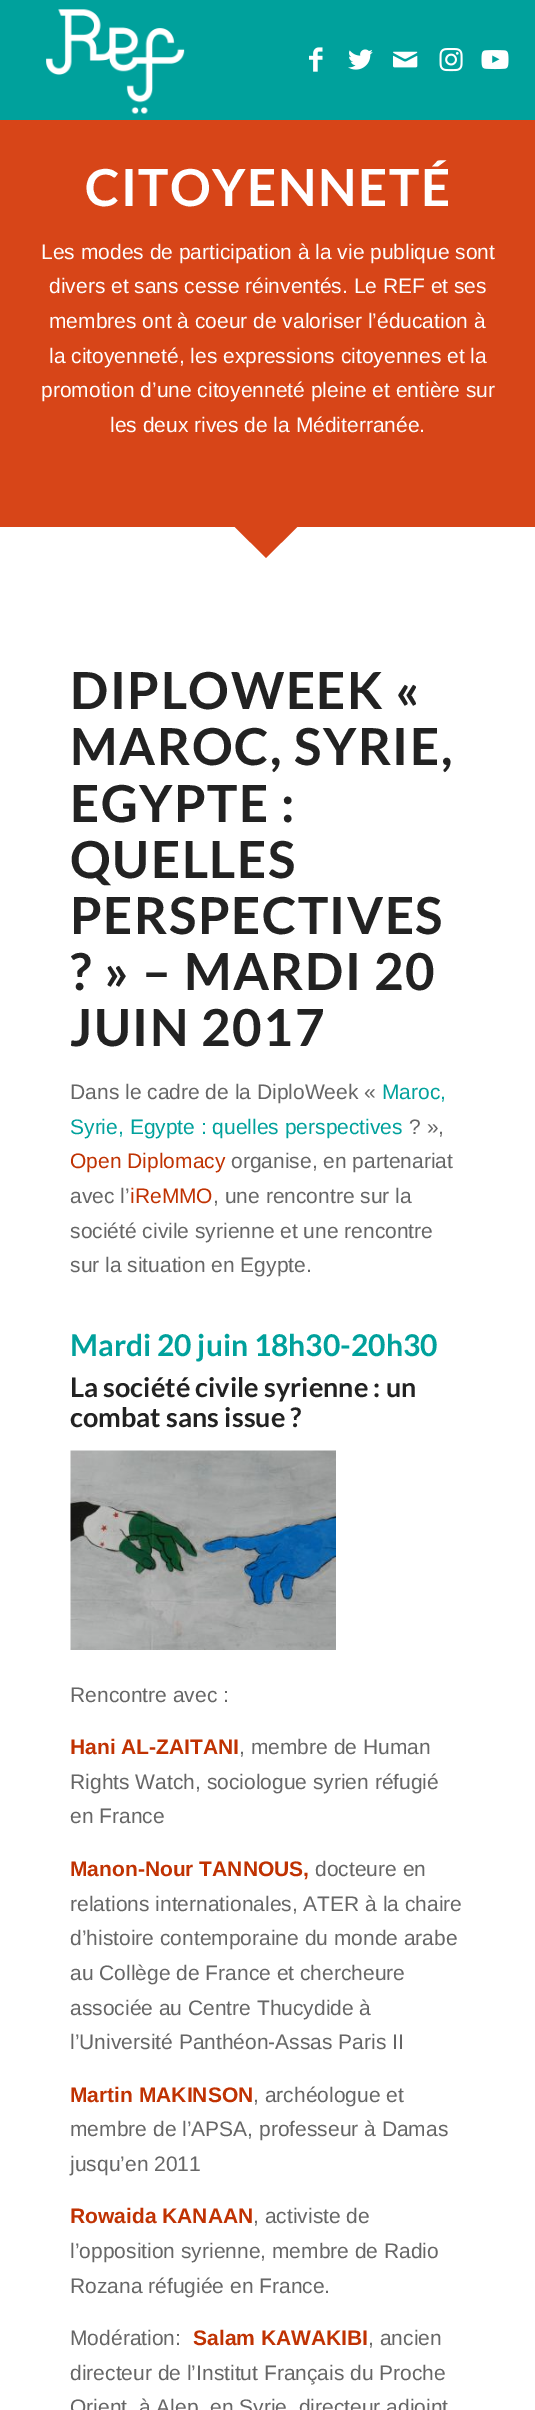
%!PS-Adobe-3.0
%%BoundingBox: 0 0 535 2410
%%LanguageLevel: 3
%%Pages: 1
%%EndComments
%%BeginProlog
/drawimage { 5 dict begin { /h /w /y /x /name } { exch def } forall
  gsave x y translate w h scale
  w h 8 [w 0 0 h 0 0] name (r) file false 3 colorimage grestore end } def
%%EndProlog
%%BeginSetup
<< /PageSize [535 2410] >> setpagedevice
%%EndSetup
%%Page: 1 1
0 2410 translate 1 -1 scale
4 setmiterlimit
0.843 0.271 0.094 setrgbcolor
0 0 535 2410 rectfill
0 0.631 0.612 setrgbcolor
0 0 535 120 rectfill
(images/1.raw) 46 9 139 105 drawimage
(images/2.raw) 309 47 14 25 drawimage
(images/3.raw) 348 49 25 21 drawimage
(images/4.raw) 393 51 25 17 drawimage
(images/5.raw) 439 48 24 24 drawimage
(images/6.raw) 481 50 28 20 drawimage
1 setgray
0 527 535 1883 rectfill
gsave
230 527 75 37 rectclip
0.843 0.271 0.094 setrgbcolor
newpath 266 452 moveto 319 505 lineto 266 558 lineto 213 505 lineto closepath fill
grestore
(images/7.raw) 70 1450 266 200 drawimage
/Lato-Bold [51 0 0 -51 0 0] selectfont
85 206 moveto 1.5 0 (CITOYENNETÉ) ashow
/LiberationSans-Regular [21 0 0 -21 0 0] selectfont
41 259 moveto (Les modes de participation à la vie publique sont) show
49 293 moveto (divers et sans cesse réinventés. Le REF et ses) show
49 328 moveto (membres ont à coeur de valoriser l’éducation à) show
49 363 moveto (la citoyenneté, les expressions citoyennes et la) show
41 397 moveto (promotion d’une citoyenneté pleine et entière sur) show
110 432 moveto (les deux rives de la Méditerranée.) show
/Lato-Bold [51 0 0 -51 0 0] selectfont
0.133 setgray
70 709 moveto 1.5 0 (DIPLOWEEK «) ashow
70 765 moveto 1.5 0 (MAROC, SYRIE,) ashow
70 822 moveto 1.5 0 (EGYPTE :) ashow
70 878 moveto 1.5 0 (QUELLES) ashow
70 934 moveto 1.5 0 (PERSPECTIVES) ashow
70 990 moveto 1.5 0 (? » – MARDI 20) ashow
70 1046 moveto 1.5 0 (JUIN 2017) ashow
/LiberationSans-Regular [21 0 0 -21 0 0] selectfont
0.4 setgray
70 1099 moveto (Dans le cadre de la DiploWeek «) show
0 0.631 0.612 setrgbcolor
382 1099 moveto (Maroc,) show
70 1134 moveto (Syrie, Egypte : quelles perspectives) show
0.4 setgray
409 1134 moveto (? »,) show
0.753 0.196 0.008 setrgbcolor
70 1168 moveto (Open Diplomacy) show
0.4 setgray
231 1168 moveto (organise, en partenariat) show
70 1203 moveto (avec l’) show
0.753 0.196 0.008 setrgbcolor
130 1203 moveto (iReMMO) show
0.4 setgray
213 1203 moveto (, une rencontre sur la) show
70 1238 moveto (société civile syrienne et une rencontre) show
70 1272 moveto (sur la situation en Egypte.) show
/Lato-Bold [30 0 0 -30 0 0] selectfont
0 0.631 0.612 setrgbcolor
70 1356 moveto (Mardi 20 juin 18h30-20h30) show
/Lato-Bold [27 0 0 -27 0 0] selectfont
0.133 setgray
70 1397 moveto (La société civile syrienne : un) show
70 1427 moveto (combat sans issue ?) show
/LiberationSans-Regular [21 0 0 -21 0 0] selectfont
0.4 setgray
70 1702 moveto (Rencontre avec :) show
/LiberationSans-Bold [21 0 0 -21 0 0] selectfont
0.753 0.196 0.008 setrgbcolor
70 1754 moveto (Hani AL-ZAITANI) show
/LiberationSans-Regular [21 0 0 -21 0 0] selectfont
0.4 setgray
239 1754 moveto (, membre de Human) show
70 1789 moveto (Rights Watch, sociologue syrien réfugié) show
70 1823 moveto (en France) show
/LiberationSans-Bold [21 0 0 -21 0 0] selectfont
0.753 0.196 0.008 setrgbcolor
70 1876 moveto (Manon-Nour TANNOUS,) show
/LiberationSans-Regular [21 0 0 -21 0 0] selectfont
0.4 setgray
315 1876 moveto (docteure en) show
70 1911 moveto (relations internationales, ATER à la chaire) show
70 1945 moveto (d’histoire contemporaine du monde arabe) show
70 1980 moveto (au Collège de France et chercheure) show
70 2015 moveto (associée au Centre Thucydide à) show
70 2049 moveto (l’Université Panthéon-Assas Paris II) show
/LiberationSans-Bold [21 0 0 -21 0 0] selectfont
0.753 0.196 0.008 setrgbcolor
70 2102 moveto (Martin MAKINSON) show
/LiberationSans-Regular [21 0 0 -21 0 0] selectfont
0.4 setgray
253 2102 moveto (, archéologue et) show
70 2136 moveto (membre de l’APSA, professeur à Damas) show
70 2171 moveto (jusqu’en 2011) show
/LiberationSans-Bold [21 0 0 -21 0 0] selectfont
0.753 0.196 0.008 setrgbcolor
70 2223 moveto (Rowaida KANAAN) show
/LiberationSans-Regular [21 0 0 -21 0 0] selectfont
0.4 setgray
253 2223 moveto (, activiste de) show
70 2258 moveto (l’opposition syrienne, membre de Radio) show
70 2293 moveto (Rozana réfugiée en France.) show
70 2345 moveto (Modération:) show
/LiberationSans-Bold [21 0 0 -21 0 0] selectfont
0.753 0.196 0.008 setrgbcolor
193 2345 moveto (Salam KAWAKIBI) show
/LiberationSans-Regular [21 0 0 -21 0 0] selectfont
0.4 setgray
368 2345 moveto (, ancien) show
70 2380 moveto (directeur de l’Institut Français du Proche) show
70 2414 moveto (Orient, à Alep, en Syrie, directeur adjoint) show
showpage
%%EOF
